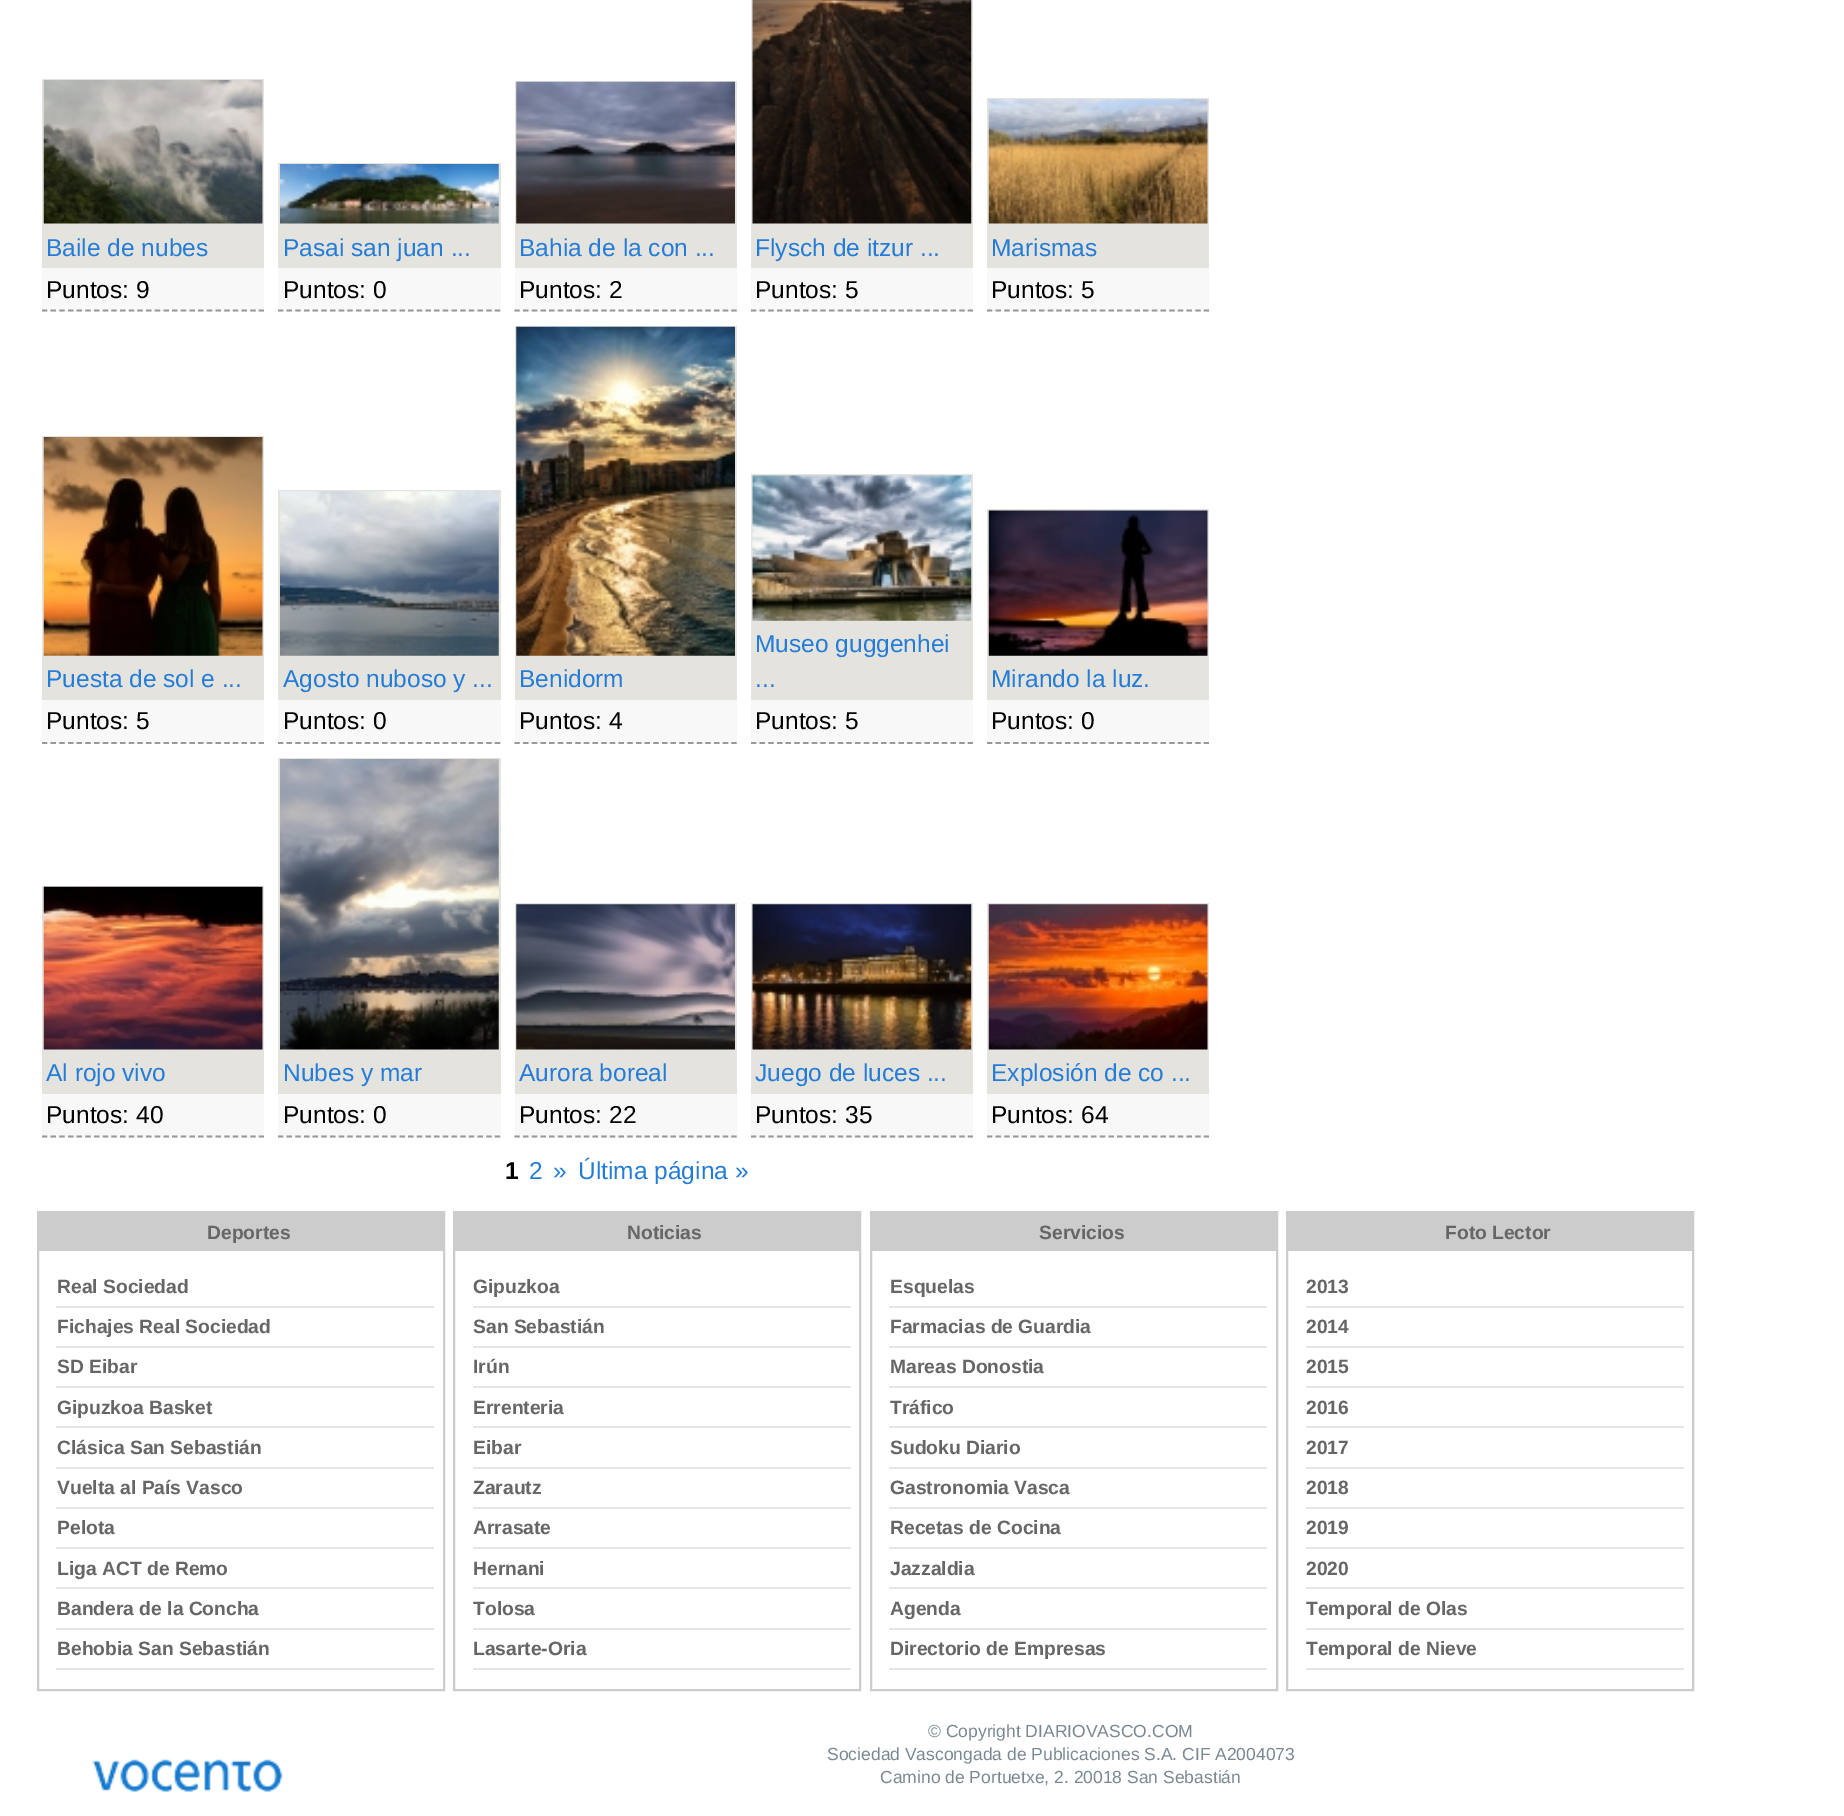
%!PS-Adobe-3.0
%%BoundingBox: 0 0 1844 1816
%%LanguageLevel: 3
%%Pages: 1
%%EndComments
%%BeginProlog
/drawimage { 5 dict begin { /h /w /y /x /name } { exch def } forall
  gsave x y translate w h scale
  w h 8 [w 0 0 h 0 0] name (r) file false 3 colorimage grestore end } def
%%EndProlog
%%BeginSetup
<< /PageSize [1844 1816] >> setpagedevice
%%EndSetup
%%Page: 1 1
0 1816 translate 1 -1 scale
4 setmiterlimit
1 setgray
0 0 1844 1816 rectfill
0.894 0.89 0.871 setrgbcolor
42 79 222 189 rectfill
(images/1.raw) 43 80 220 144 drawimage
0.973 setgray
42 268 222 44 rectfill
0.6 setgray
1.8 setlinewidth
[5.25 3.43] 0 setdash
newpath 42 310.5 moveto 264 310.5 lineto stroke
0.894 0.89 0.871 setrgbcolor
278 163 223 105 rectfill
(images/2.raw) 280 164 219 60 drawimage
0.973 setgray
278 268 223 44 rectfill
0.6 setgray
newpath 278 310.5 moveto 500.5 310.5 lineto stroke
0.894 0.89 0.871 setrgbcolor
515 81 222 187 rectfill
(images/3.raw) 516 81 219 143 drawimage
0.973 setgray
515 268 222 44 rectfill
0.6 setgray
newpath 514.5 310.5 moveto 737 310.5 lineto stroke
0.894 0.89 0.871 setrgbcolor
751 0 222 268 rectfill
(images/4.raw) 752 0 220 224 drawimage
0.973 setgray
751 268 222 44 rectfill
0.6 setgray
newpath 751 310.5 moveto 973 310.5 lineto stroke
0.894 0.89 0.871 setrgbcolor
987 98 222 170 rectfill
(images/5.raw) 988 99 220 125 drawimage
0.973 setgray
987 268 222 44 rectfill
0.6 setgray
newpath 987 310.5 moveto 1209 310.5 lineto stroke
0.894 0.89 0.871 setrgbcolor
42 436 222 264 rectfill
(images/6.raw) 43 437 220 219 drawimage
0.973 setgray
42 700 222 44 rectfill
0.6 setgray
newpath 42 743 moveto 264 743 lineto stroke
0.894 0.89 0.871 setrgbcolor
278 490 223 210 rectfill
(images/7.raw) 280 491 219 165 drawimage
0.973 setgray
278 700 223 44 rectfill
0.6 setgray
newpath 278 743 moveto 500.5 743 lineto stroke
0.894 0.89 0.871 setrgbcolor
515 326 222 374 rectfill
(images/8.raw) 516 326 219 330 drawimage
0.973 setgray
515 700 222 44 rectfill
0.6 setgray
newpath 514.5 743 moveto 737 743 lineto stroke
0.894 0.89 0.871 setrgbcolor
751 474 222 226 rectfill
(images/9.raw) 752 475 220 146 drawimage
0.973 setgray
751 700 222 44 rectfill
0.6 setgray
newpath 751 743 moveto 973 743 lineto stroke
0.894 0.89 0.871 setrgbcolor
987 509 222 191 rectfill
(images/10.raw) 988 510 220 146 drawimage
0.973 setgray
987 700 222 44 rectfill
0.6 setgray
newpath 987 743 moveto 1209 743 lineto stroke
0.894 0.89 0.871 setrgbcolor
42 886 222 208 rectfill
(images/11.raw) 43 886 220 164 drawimage
0.973 setgray
42 1094 222 44 rectfill
0.6 setgray
newpath 42 1136.5 moveto 264 1136.5 lineto stroke
0.894 0.89 0.871 setrgbcolor
278 758 223 336 rectfill
(images/12.raw) 280 759 219 291 drawimage
0.973 setgray
278 1094 223 44 rectfill
0.6 setgray
newpath 278 1136.5 moveto 500.5 1136.5 lineto stroke
0.894 0.89 0.871 setrgbcolor
515 903 222 191 rectfill
(images/13.raw) 516 904 219 146 drawimage
0.973 setgray
515 1094 222 44 rectfill
0.6 setgray
newpath 514.5 1136.5 moveto 737 1136.5 lineto stroke
0.894 0.89 0.871 setrgbcolor
751 903 222 191 rectfill
(images/14.raw) 752 904 220 146 drawimage
0.973 setgray
751 1094 222 44 rectfill
0.6 setgray
newpath 751 1136.5 moveto 973 1136.5 lineto stroke
0.894 0.89 0.871 setrgbcolor
987 903 222 191 rectfill
(images/15.raw) 988 904 220 146 drawimage
0.973 setgray
987 1094 222 44 rectfill
0.6 setgray
newpath 987 1136.5 moveto 1209 1136.5 lineto stroke
0.8 setgray
2 setlinewidth
[] 0 setdash
38 1212 406 478 rectstroke
39 1213 404 38 rectfill
0.902 setgray
56 1306 378 2 rectfill
56 1346 378 2 rectfill
56 1386 378 2 rectfill
56 1426 378 2 rectfill
56 1467 378 2 rectfill
56 1507 378 2 rectfill
56 1547 378 2 rectfill
56 1587 378 2 rectfill
56 1628 378 2 rectfill
56 1668 378 2 rectfill
0.8 setgray
454 1212 406 478 rectstroke
455 1213 404 38 rectfill
0.902 setgray
473 1306 378 2 rectfill
473 1346 378 2 rectfill
473 1386 378 2 rectfill
473 1426 378 2 rectfill
473 1467 378 2 rectfill
473 1507 378 2 rectfill
473 1547 378 2 rectfill
473 1587 378 2 rectfill
473 1628 378 2 rectfill
473 1668 378 2 rectfill
0.8 setgray
871 1212 406 478 rectstroke
872 1213 404 38 rectfill
0.902 setgray
889 1306 378 2 rectfill
889 1346 378 2 rectfill
889 1386 378 2 rectfill
889 1426 378 2 rectfill
889 1467 378 2 rectfill
889 1507 378 2 rectfill
889 1547 378 2 rectfill
889 1587 378 2 rectfill
889 1628 378 2 rectfill
889 1668 378 2 rectfill
0.8 setgray
1287 1212 406 478 rectstroke
1288 1213 404 38 rectfill
0.902 setgray
1306 1306 378 2 rectfill
1306 1346 378 2 rectfill
1306 1386 378 2 rectfill
1306 1426 378 2 rectfill
1306 1467 378 2 rectfill
1306 1507 378 2 rectfill
1306 1547 378 2 rectfill
1306 1587 378 2 rectfill
1306 1628 378 2 rectfill
1306 1668 378 2 rectfill
(images/16.raw) 92 1759 191 33 drawimage
/LiberationSans-Regular [24.5 0 0 -24.5 0 0] selectfont
0.137 0.486 0.847 setrgbcolor
46 256 moveto (Baile de nubes) show
0 setgray
46 298 moveto (Puntos: 9) show
0.137 0.486 0.847 setrgbcolor
283 256 moveto (Pasai san juan ...) show
0 setgray
283 298 moveto (Puntos: 0) show
0.137 0.486 0.847 setrgbcolor
519 256 moveto (Bahia de la con ...) show
0 setgray
519 298 moveto (Puntos: 2) show
0.137 0.486 0.847 setrgbcolor
755 256 moveto (Flysch de itzur ...) show
0 setgray
755 298 moveto (Puntos: 5) show
0.137 0.486 0.847 setrgbcolor
991 256 moveto (Marismas) show
0 setgray
991 298 moveto (Puntos: 5) show
0.137 0.486 0.847 setrgbcolor
46 687 moveto (Puesta de sol e ...) show
0 setgray
46 729 moveto (Puntos: 5) show
0.137 0.486 0.847 setrgbcolor
283 687 moveto (Agosto nuboso y ...) show
0 setgray
283 729 moveto (Puntos: 0) show
0.137 0.486 0.847 setrgbcolor
519 687 moveto (Benidorm) show
0 setgray
519 729 moveto (Puntos: 4) show
0.137 0.486 0.847 setrgbcolor
755 652 moveto (Museo guggenhei) show
755 687 moveto (...) show
0 setgray
755 729 moveto (Puntos: 5) show
0.137 0.486 0.847 setrgbcolor
991 687 moveto (Mirando la luz.) show
0 setgray
991 729 moveto (Puntos: 0) show
0.137 0.486 0.847 setrgbcolor
46 1081 moveto (Al rojo vivo) show
0 setgray
46 1123 moveto (Puntos: 40) show
0.137 0.486 0.847 setrgbcolor
283 1081 moveto (Nubes y mar) show
0 setgray
283 1123 moveto (Puntos: 0) show
0.137 0.486 0.847 setrgbcolor
519 1081 moveto (Aurora boreal) show
0 setgray
519 1123 moveto (Puntos: 22) show
0.137 0.486 0.847 setrgbcolor
755 1081 moveto (Juego de luces ...) show
0 setgray
755 1123 moveto (Puntos: 35) show
0.137 0.486 0.847 setrgbcolor
991 1081 moveto (Explosión de co ...) show
0 setgray
991 1123 moveto (Puntos: 64) show
/LiberationSans-Bold [24.5 0 0 -24.5 0 0] selectfont
505 1179 moveto (1) show
/LiberationSans-Regular [24.5 0 0 -24.5 0 0] selectfont
0.137 0.486 0.847 setrgbcolor
529 1179 moveto (2) show
553 1179 moveto (») show
578 1179 moveto (Última página ») show
/LiberationSans-Bold [19.25 0 0 -19.25 0 0] selectfont
0.4 setgray
207 1239 moveto (Deportes) show
57 1293 moveto (Real Sociedad) show
57 1333 moveto (Fichajes Real Sociedad) show
57 1373 moveto (SD Eibar) show
57 1414 moveto (Gipuzkoa Basket) show
57 1454 moveto (Clásica San Sebastián) show
57 1494 moveto (Vuelta al País Vasco) show
57 1534 moveto (Pelota) show
57 1575 moveto (Liga ACT de Remo) show
57 1615 moveto (Bandera de la Concha) show
57 1655 moveto (Behobia San Sebastián) show
627 1239 moveto (Noticias) show
473 1293 moveto (Gipuzkoa) show
473 1333 moveto (San Sebastián) show
473 1373 moveto (Irún) show
473 1414 moveto (Errenteria) show
473 1454 moveto (Eibar) show
473 1494 moveto (Zarautz) show
473 1534 moveto (Arrasate) show
473 1575 moveto (Hernani) show
473 1615 moveto (Tolosa) show
473 1655 moveto (Lasarte-Oria) show
1039 1239 moveto (Servicios) show
890 1293 moveto (Esquelas) show
890 1333 moveto (Farmacias de Guardia) show
890 1373 moveto (Mareas Donostia) show
890 1414 moveto (Tráfico) show
890 1454 moveto (Sudoku Diario) show
890 1494 moveto (Gastronomia Vasca) show
890 1534 moveto (Recetas de Cocina) show
890 1575 moveto (Jazzaldia) show
890 1615 moveto (Agenda) show
890 1655 moveto (Directorio de Empresas) show
1445 1239 moveto (Foto Lector) show
1306 1293 moveto (2013) show
1306 1333 moveto (2014) show
1306 1373 moveto (2015) show
1306 1414 moveto (2016) show
1306 1454 moveto (2017) show
1306 1494 moveto (2018) show
1306 1534 moveto (2019) show
1306 1575 moveto (2020) show
1306 1615 moveto (Temporal de Olas) show
1306 1655 moveto (Temporal de Nieve) show
/LiberationSans-Regular [17.5 0 0 -17.5 0 0] selectfont
0.478 0.533 0.569 setrgbcolor
928 1737 moveto (© Copyright DIARIOVASCO.COM) show
827 1760 moveto (Sociedad Vascongada de Publicaciones S.A. CIF A2004073) show
880 1783 moveto (Camino de Portuetxe, 2. 20018 San Sebastián) show
showpage
%%EOF
